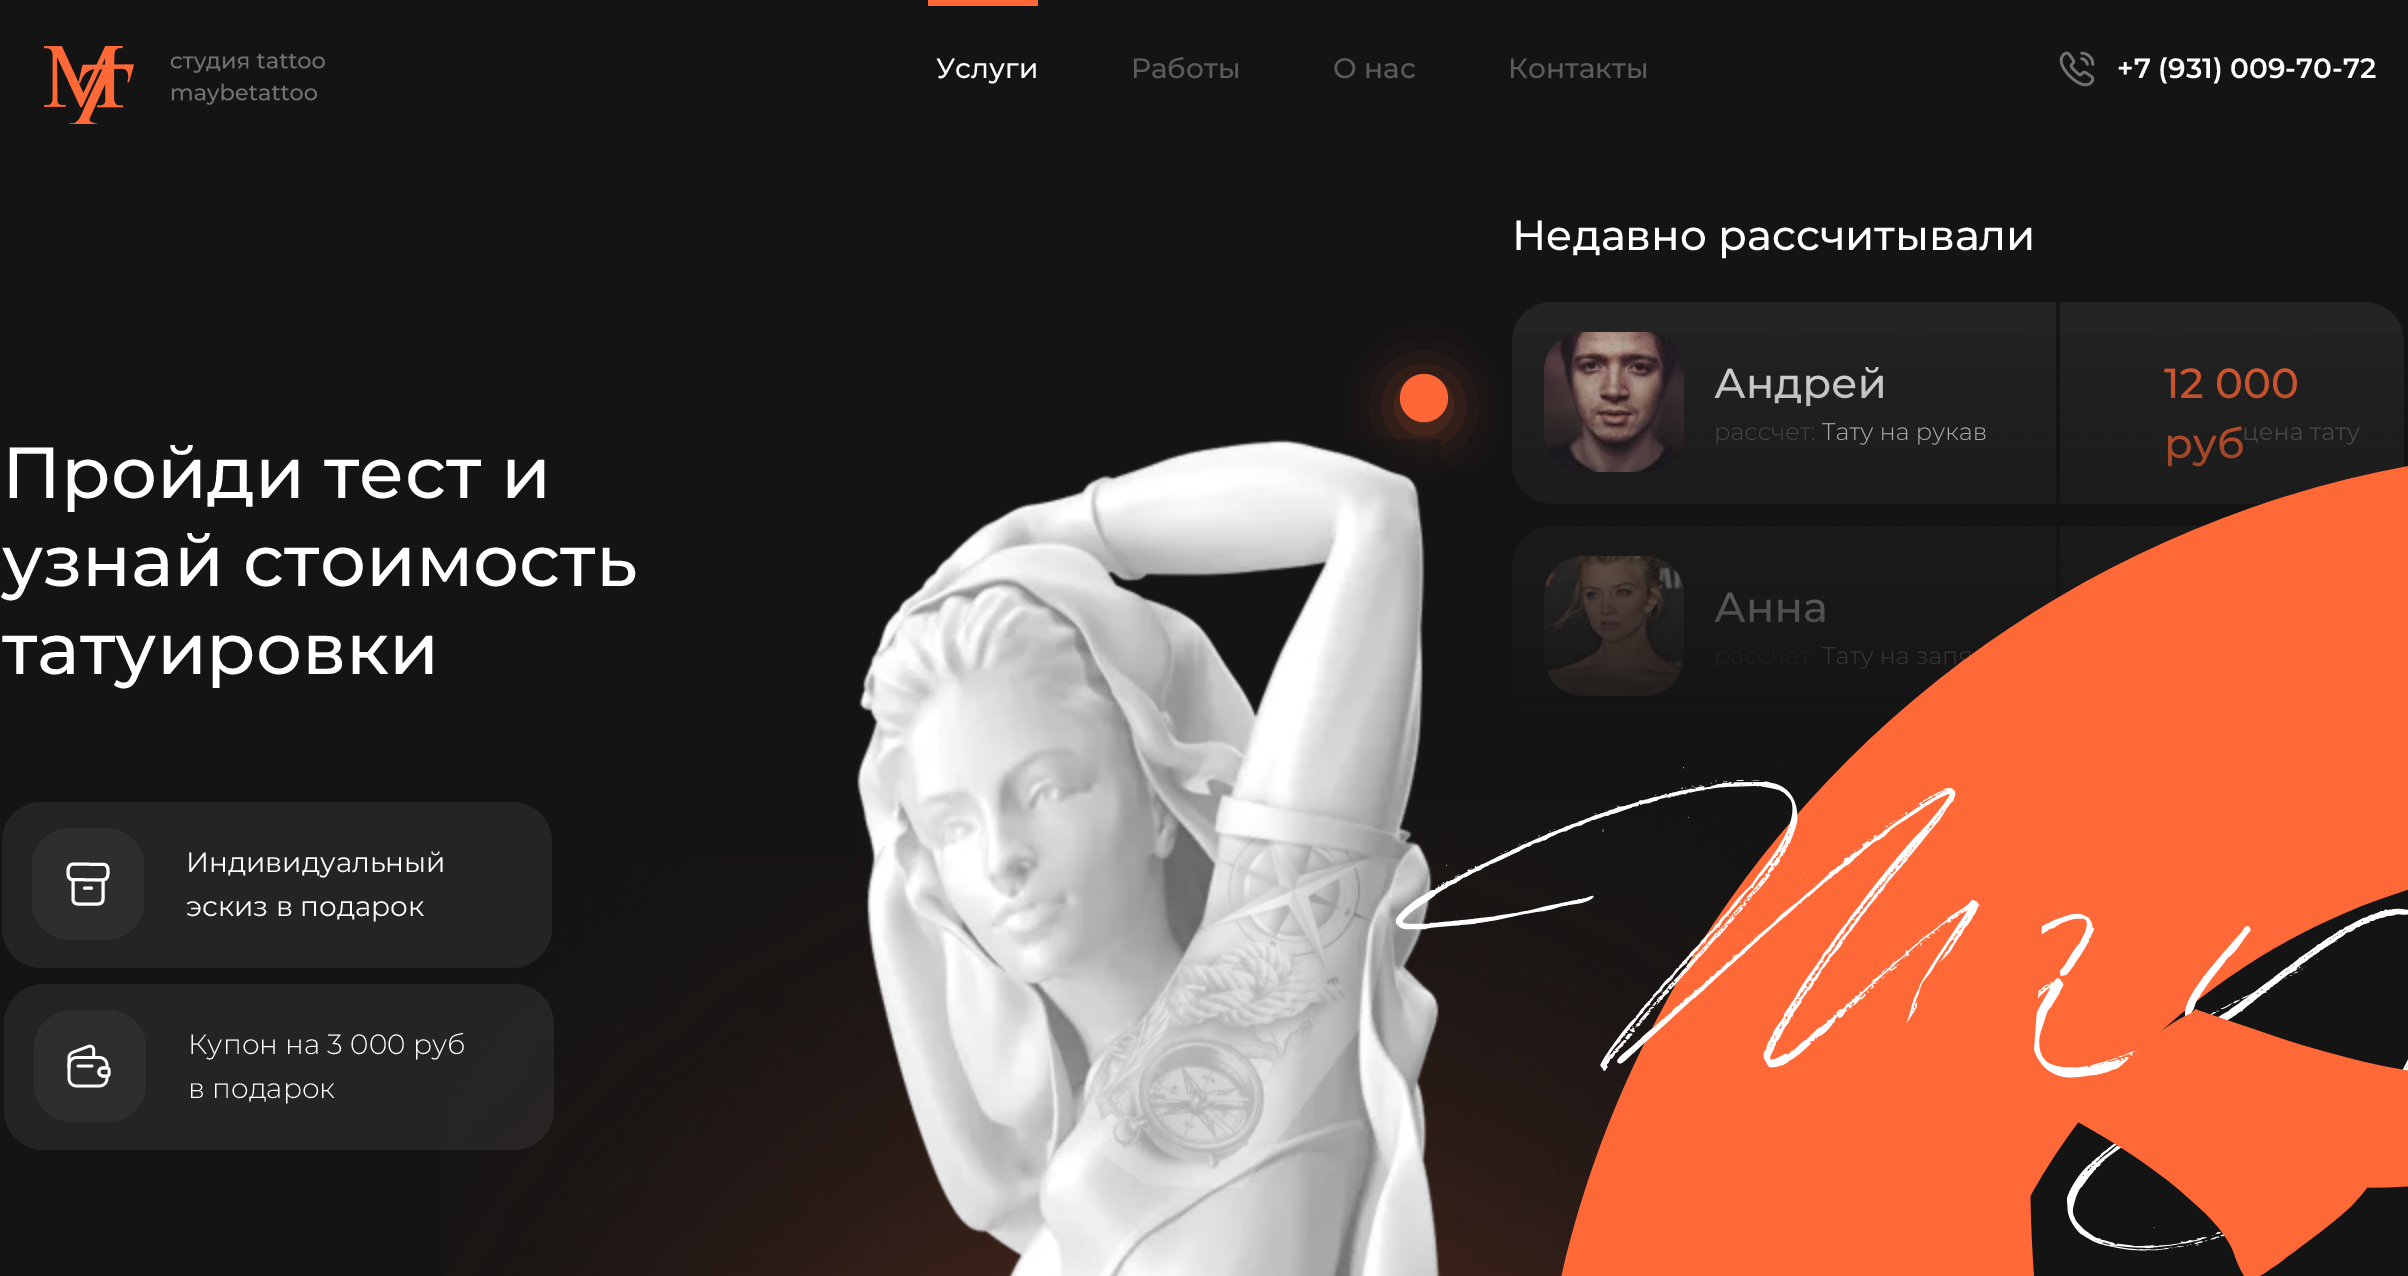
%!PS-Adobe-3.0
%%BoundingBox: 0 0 2408 1276
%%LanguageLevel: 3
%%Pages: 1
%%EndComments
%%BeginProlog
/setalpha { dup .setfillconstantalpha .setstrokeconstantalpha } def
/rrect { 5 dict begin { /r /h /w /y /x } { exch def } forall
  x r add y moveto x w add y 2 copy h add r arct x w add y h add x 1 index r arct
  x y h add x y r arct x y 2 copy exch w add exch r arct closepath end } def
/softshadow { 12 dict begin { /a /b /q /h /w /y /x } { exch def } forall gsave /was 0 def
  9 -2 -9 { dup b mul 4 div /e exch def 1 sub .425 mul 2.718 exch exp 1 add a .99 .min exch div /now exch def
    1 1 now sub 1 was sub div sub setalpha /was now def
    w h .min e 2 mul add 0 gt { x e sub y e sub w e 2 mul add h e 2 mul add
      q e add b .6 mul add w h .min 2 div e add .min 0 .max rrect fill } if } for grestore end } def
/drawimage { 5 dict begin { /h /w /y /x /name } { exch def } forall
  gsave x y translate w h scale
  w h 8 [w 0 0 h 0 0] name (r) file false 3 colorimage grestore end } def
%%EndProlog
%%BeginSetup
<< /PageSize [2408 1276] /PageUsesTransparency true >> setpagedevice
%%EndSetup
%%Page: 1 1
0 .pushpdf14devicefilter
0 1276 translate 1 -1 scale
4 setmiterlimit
0.078 setgray
0 0 2408 1276 rectfill
1 0.404 0.216 setrgbcolor
928 0 110 6 rectfill
(images/1.raw) 44 46 281 78 drawimage
(images/2.raw) 2059 51 36 36 drawimage
1 0.408 0.216 setrgbcolor
1400 382 48 48 24 25 0.4 softshadow
0.141 setgray
1512 302 892 202 40 rrect fill
1 0.404 0.216 setrgbcolor
newpath 1424 398 24 0 360 arc closepath fill
(images/4.raw) 1544 332 140 140 drawimage
0.141 setgray
1512 526 892 202 40 rrect fill
(images/7.raw) 1544 556 140 140 drawimage
2 802 550 166 40 rrect fill
0.18 setgray
32 828 112 112 38 rrect fill
1 setgray
3 setlinewidth
1 setlinecap
1 setlinejoin
newpath 103 880.5 moveto 103 898 lineto 103 902 102 904 97 904 curveto 79 904 lineto 74 904 73 902 73 898 curveto 73 880.5 lineto 74 864 moveto 104.5 864.5 lineto 108 865.5 108 869 108 872 curveto 108 880.5 105 880 97.5 880 curveto 71.5 879.5 lineto 68 878.5 68 875 68 872 curveto 68 867.5 69 864 74 864 curveto closepath 84.5 888 moveto 91.5 888 lineto stroke
0.141 setgray
4 984 550 166 40 rrect fill
0.18 setgray
34 1010 112 112 38 rrect fill
(images/10.raw) 67 1044 44 44 drawimage
/Montserrat-Medium [28 0 0 -28 0 0] selectfont
1 setgray
936 78 moveto (Услуги) show
0.357 setgray
1131 78 moveto (Работы) show
1333 78 moveto (О нас) show
1508 78 moveto (Контакты) show
/Montserrat-SemiBold [28 0 0 -28 0 0] selectfont
1 setgray
2117 78 moveto (+7 \(931\) 009-70-72) show
/Montserrat-Medium [42 0 0 -42 0 0] selectfont
1512 250 moveto (Недавно рассчитывали) show
1714 398 moveto (Андрей) show
1 0.404 0.216 setrgbcolor
2164 398 moveto (12 000) show
2164 458 moveto (руб) show
/Montserrat-Light [24 0 0 -24 0 0] selectfont
0.357 setgray
1714 440 moveto (рассчет:) show
1 setgray
1822 440 moveto (Тату на рукав) show
/Montserrat-Regular [24 0 0 -24 0 0] selectfont
0.357 setgray
2242 440 moveto (цена тату) show
(images/3.raw) 1512 332 892 396 drawimage
0.078 setgray
2056 302 4 202 rectfill
/Montserrat-Medium [72 0 0 -72 0 0] selectfont
1 setgray
2 498 moveto (Пройди тест и) show
2 586 moveto (узнай стоимость) show
2 674 moveto (татуировки) show
0.078 setgray
2056 526 4 73 rectfill
/Montserrat-Regular [28 0 0 -28 0 0] selectfont
1 setgray
186 872 moveto (Индивидуальный) show
186 916 moveto (эскиз в подарок) show
/Montserrat-Light [28 0 0 -28 0 0] selectfont
188 1054 moveto (Купон на 3 000 руб) show
(images/9.raw) 445 858 1245 418 drawimage
(images/5.raw) 857 439 584 837 drawimage
(images/8.raw) 1088 834 312 355 drawimage
(images/6.raw) 1395 466 1013 810 drawimage
188 1098 moveto (в подарок) show
.poppdf14devicefilter showpage
%%EOF
